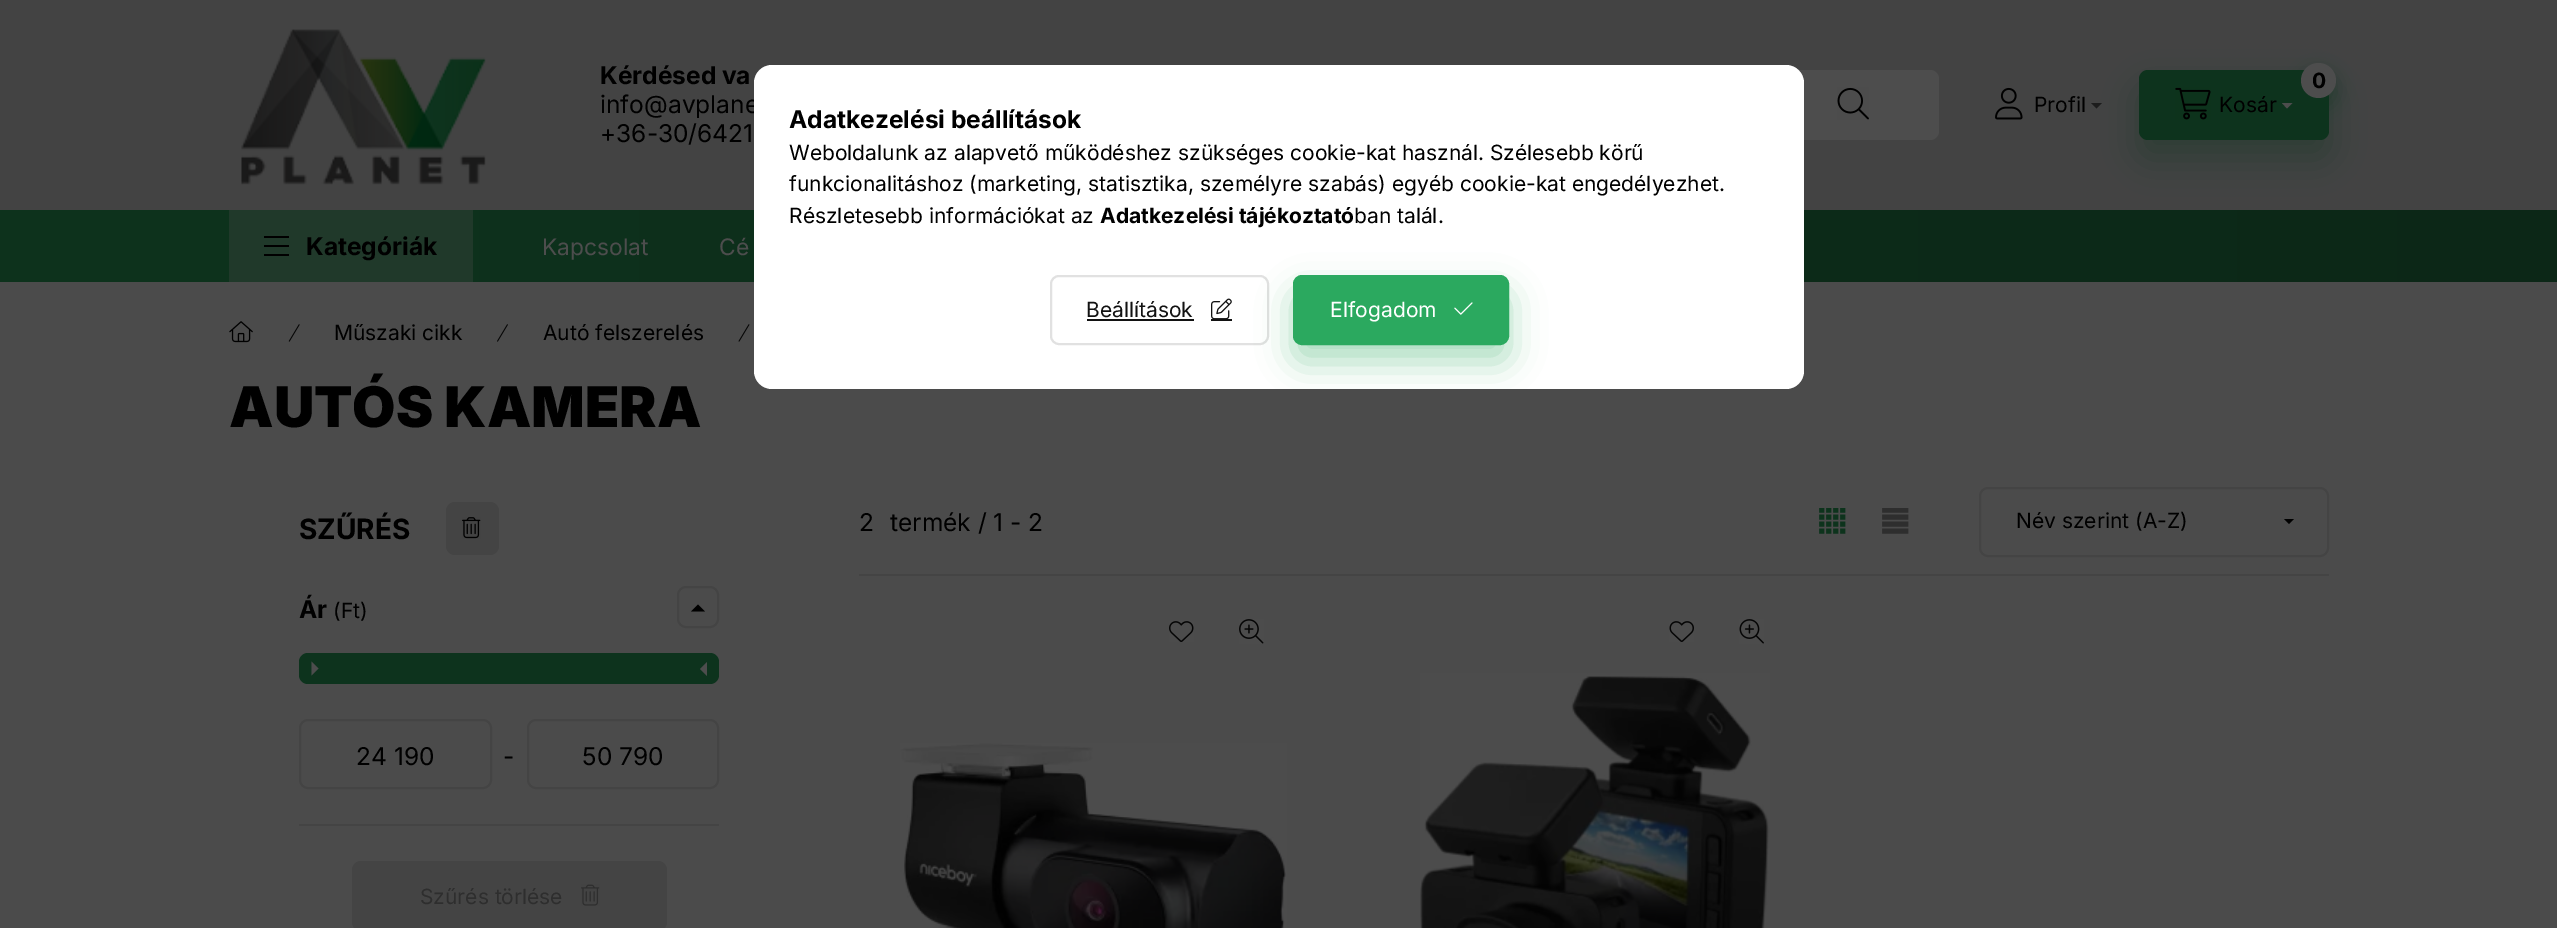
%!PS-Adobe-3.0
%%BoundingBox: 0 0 2557 928
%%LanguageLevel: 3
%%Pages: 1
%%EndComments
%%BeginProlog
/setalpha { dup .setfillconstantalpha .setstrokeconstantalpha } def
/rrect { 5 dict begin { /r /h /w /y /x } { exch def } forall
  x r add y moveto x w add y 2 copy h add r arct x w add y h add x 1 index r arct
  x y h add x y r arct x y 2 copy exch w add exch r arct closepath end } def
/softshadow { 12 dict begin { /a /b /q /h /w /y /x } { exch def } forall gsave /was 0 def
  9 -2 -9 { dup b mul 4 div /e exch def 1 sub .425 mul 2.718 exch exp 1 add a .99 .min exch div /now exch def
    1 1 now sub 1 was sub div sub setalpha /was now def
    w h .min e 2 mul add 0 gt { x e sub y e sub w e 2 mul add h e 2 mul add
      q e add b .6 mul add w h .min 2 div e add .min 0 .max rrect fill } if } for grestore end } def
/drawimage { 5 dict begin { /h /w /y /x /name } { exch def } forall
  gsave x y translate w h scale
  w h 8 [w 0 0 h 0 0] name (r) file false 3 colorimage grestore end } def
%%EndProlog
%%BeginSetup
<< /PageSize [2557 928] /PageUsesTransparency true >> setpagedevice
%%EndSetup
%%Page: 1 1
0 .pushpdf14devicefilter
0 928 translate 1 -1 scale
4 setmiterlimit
0.294 setgray
0 0 2557 928 rectfill
0.263 setgray
0 0 2557 210 rectfill
(images/1.raw) 241 29 245 156 drawimage
0.302 setgray
838 70 1101 70 9 rrect fill
(images/2.raw) 1837 87 32 33 drawimage
(images/3.raw) 1995 87 28 33 drawimage
gsave newpath 0 210 moveto 2557 210 lineto 2557 282 lineto 0 282 lineto closepath clip newpath
<< /ShadingType 2 /ColorSpace /DeviceRGB /Coords [0 465 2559 465] /Extend [true true] /Function << /FunctionType 2 /Domain [0 1] /C0 [0.051 0.2 0.114] /C1 [0.047 0.153 0.09] /N 1 >> >> shfill grestore
0.051 0.2 0.114 setrgbcolor
2139 88 190 70 9 17.5 0.4 softshadow
0.114 setgray
newpath 2091 103 moveto 2102 103 lineto 2096.5 108.5 lineto closepath fill
0.051 0.2 0.114 setrgbcolor
2139 70 190 70 9 rrect fill
2301 72 35 35 17.5 9 0.4 softshadow
0.302 setgray
newpath 2318.5 80.5 17.5 0 360 arc closepath fill
(images/4.raw) 2175 87 36 33 drawimage
newpath 2282 103 moveto 2292.5 103 lineto 2287 108.5 lineto closepath fill
gsave newpath 229 210 moveto 473 210 lineto 473 282 lineto 229 282 lineto closepath clip newpath
<< /ShadingType 2 /ColorSpace /DeviceRGB /Coords [0 465 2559 465] /Extend [true true] /Function << /FunctionType 2 /Domain [0 1] /C0 [0.125 0.231 0.169] /C1 [0.125 0.196 0.153] /N 1 >> >> shfill grestore
0 setgray
264 236 25 2 rectfill
264 245 25 2 rectfill
264 254 25 2 rectfill
(images/5.raw) 229 321 24 22 drawimage
(images/6.raw) 288 324 12 18 drawimage
(images/7.raw) 497 324 11 18 drawimage
(images/8.raw) 738 324 12 18 drawimage
0.267 setgray
446 502 53 53 9 rrect fill
(images/9.raw) 462 517 19 22 drawimage
299 824 420 2 rectfill
2 setlinewidth
678 587 40 40 8 rrect stroke
0 setgray
newpath 691 611.5 moveto 705 611.5 lineto 698 604.5 lineto closepath fill
0.051 0.2 0.114 setrgbcolor
newpath 308 653 moveto 331 653 lineto 331 684 lineto 308 684 lineto 303 684 299 680 299 675 curveto 299 662 lineto 299 657 303 653 308 653 curveto closepath fill
0.302 setgray
newpath 311.5 675.5 moveto 311.5 661.5 lineto 318.5 668.5 lineto closepath fill
0.051 0.2 0.114 setrgbcolor
331 653 357 31 rectfill
newpath 688 653 moveto 710 653 lineto 715 653 719 657 719 662 curveto 719 675 lineto 719 680 715 684 710 684 curveto 688 684 lineto closepath fill
0.302 setgray
newpath 707 676 moveto 707 662 lineto 700 669 lineto closepath fill
0.267 setgray
300 720 191 68 8 rrect stroke
528 720 190 68 8 rrect stroke
352 861 315 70 9 rrect fill
(images/10.raw) 581 884 19 22 drawimage
859 574 1470 2 rectfill
(images/11.raw) 1819 508 27 26 drawimage
(images/12.raw) 1882 508 27 26 drawimage
1980 488 348 68 8 rrect stroke
0 setgray
newpath 2284 519 moveto 2294 519 lineto 2289 524 lineto closepath fill
(images/13.raw) 1169 621 25 21 drawimage
(images/14.raw) 1239 619 25 25 drawimage
(images/15.raw) 900 743 387 185 drawimage
(images/16.raw) 1669 621 25 21 drawimage
(images/17.raw) 1739 619 25 25 drawimage
(images/18.raw) 1420 673 350 255 drawimage
/Inter-Bold [24.5 0 0 -24.5 0 0] selectfont
600 84 moveto (Kérdésed va) show
/Inter-Regular [24.5 0 0 -24.5 0 0] selectfont
600 113 moveto (info@avplane) show
600 142 moveto (+36-30/6421) show
/Inter-Regular [21 0 0 -21 0 0] selectfont
2034 112 moveto (Profil) show
/Inter-Bold [21 0 0 -21 0 0] selectfont
2312 88 moveto (0) show
/Inter-Regular [21 0 0 -21 0 0] selectfont
2219 112 moveto (Kosár) show
/Inter-Bold [24.5 0 0 -24.5 0 0] selectfont
306 255 moveto (Kategóriák) show
/Inter-Regular [22.75 0 0 -22.75 0 0] selectfont
0.302 setgray
542 255 moveto (Kapcsolat) show
719 255 moveto (Cé) show
/Inter-Regular [21 0 0 -21 0 0] selectfont
0 setgray
334 340 moveto (Műszaki cikk) show
543 340 moveto (Autó felszerelés) show
/Inter-Black [56 0 0 -56 0 0] selectfont
229 427 moveto (AUTÓS KAMERA) show
/Inter-Bold [28 0 0 -28 0 0] selectfont
299 539 moveto (SZŰRÉS) show
/Inter-Bold [24.5 0 0 -24.5 0 0] selectfont
299 618 moveto (Ár) show
/Inter-Regular [21 0 0 -21 0 0] selectfont
333 618 moveto (\(Ft\)) show
/Inter-Regular [24.5 0 0 -24.5 0 0] selectfont
356 765 moveto (24 190) show
503 765 moveto (-) show
582 765 moveto (50 790) show
/Inter-Regular [21 0 0 -21 0 0] selectfont
0.18 setgray
420 904 moveto (Szűrés törlése) show
/Inter-Regular [24.5 0 0 -24.5 0 0] selectfont
0 setgray
859 531 moveto (2) show
890 531 moveto (termék / 1 - 2) show
/Inter-Regular [21 0 0 -21 0 0] selectfont
2016 528 moveto (Név szerint \(A-Z\)) show
1 setgray
754 65 1050 324 18 rrect fill
/Inter-Bold [24.5 0 0 -24.5 0 0] selectfont
0 setgray
789 128 moveto (Adatkezelési beállítások) show
/Inter-Regular [21 0 0 -21 0 0] selectfont
789 160 moveto (Weboldalunk az alapvető működéshez szükséges cookie-kat használ. Szélesebb körű) show
789 191 moveto (funkcionalitáshoz \(marketing, statisztika, személyre szabás\) egyéb cookie-kat engedélyezhet.) show
789 223 moveto (Részletesebb információkat az) show
/Inter-Bold [21 0 0 -21 0 0] selectfont
1100 223 moveto (Adatkezelési tájékoztató) show
/Inter-Regular [21 0 0 -21 0 0] selectfont
1354 223 moveto (ban talál.) show
0.882 setgray
1051 276 217 68 8 rrect stroke
0.071 setgray
1086 317 moveto (Beállítások) show
1087 319 107 2 rectfill
(images/19.raw) 1211 298 21 21 drawimage
1211 319 21 2 rectfill
gsave
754 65 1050 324 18 rrect clip newpath
0.169 0.663 0.373 setrgbcolor
1293 292 216 70 9 17.5 0.4 softshadow
grestore
0.169 0.663 0.373 setrgbcolor
1294 276 214 68 8 rrect gsave fill grestore
stroke
1 setgray
1330 317 moveto (Elfogadom) show
(images/20.raw) 1454 302 19 13 drawimage
.poppdf14devicefilter showpage
%%EOF
